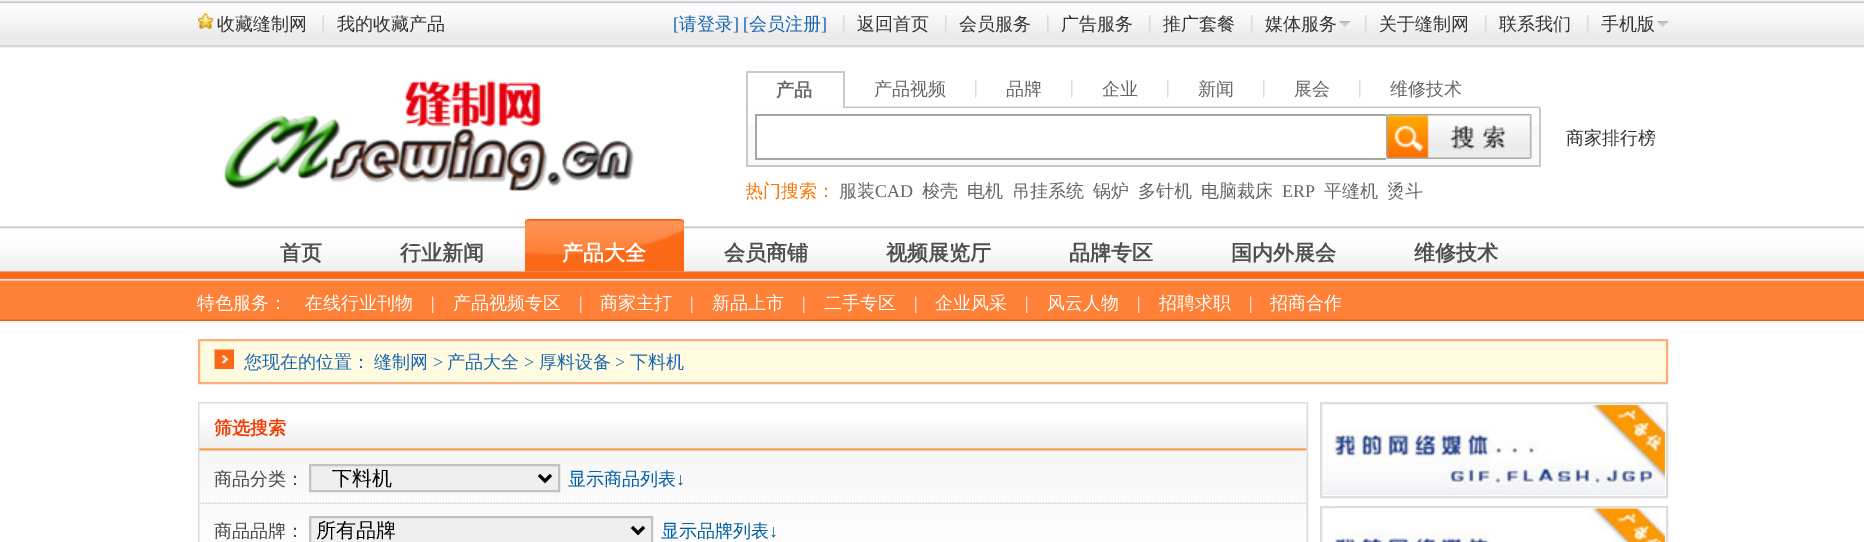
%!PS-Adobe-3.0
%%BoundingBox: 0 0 1864 542
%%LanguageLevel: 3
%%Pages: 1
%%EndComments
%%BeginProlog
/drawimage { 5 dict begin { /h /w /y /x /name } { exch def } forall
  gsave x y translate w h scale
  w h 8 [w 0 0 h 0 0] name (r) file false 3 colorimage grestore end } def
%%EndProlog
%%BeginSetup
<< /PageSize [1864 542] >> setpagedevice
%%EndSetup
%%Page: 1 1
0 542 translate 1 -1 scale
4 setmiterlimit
1 setgray
0 0 1864 542 rectfill
0.933 setgray
0 47 1864 1 rectfill
(images/1.raw) 0 0 1864 47 drawimage
(images/2.raw) 198 13 15 16 drawimage
(images/3.raw) 322 15 2 18 drawimage
(images/4.raw) 843 15 2 18 drawimage
(images/4.raw) 945 15 2 18 drawimage
(images/4.raw) 1047 15 2 18 drawimage
(images/4.raw) 1149 15 2 18 drawimage
(images/4.raw) 1251 15 2 18 drawimage
(images/5.raw) 1339 21 11 6 drawimage
(images/4.raw) 1365 15 2 18 drawimage
(images/4.raw) 1485 15 2 18 drawimage
(images/4.raw) 1587 15 2 18 drawimage
(images/6.raw) 1657 21 11 6 drawimage
(images/7.raw) 223 80 411 111 drawimage
(images/8.raw) 745 106 796 2 drawimage
(images/9.raw) 748 106 95 2 drawimage
0.788 setgray
746 71 99 2 rectfill
843 71 2 37 rectfill
746 71 2 37 rectfill
(images/10.raw) 975 79 2 19 drawimage
(images/10.raw) 1071 79 2 19 drawimage
(images/10.raw) 1167 79 2 19 drawimage
(images/10.raw) 1263 79 2 19 drawimage
(images/10.raw) 1359 79 2 19 drawimage
0.976 setgray
748 126 791 39 rectfill
0.788 setgray
1539 108 2 59 rectfill
746 165 795 2 rectfill
746 108 2 59 rectfill
1 setgray
757 126 629 32 rectfill
0.651 setgray
755 114 631 2 rectfill
755 158 631 2 rectfill
755 114 2 45 rectfill
(images/11.raw) 1386 114 146 45 drawimage
(images/12.raw) 0 226 1864 95 drawimage
(images/13.raw) 525 219 159 53 drawimage
1 0.984 0.878 setrgbcolor
200 341 1466 41 rectfill
(images/14.raw) 214 349 20 20 drawimage
1 0.678 0.482 setrgbcolor
2 setlinewidth
199 340 1468 43 rectstroke
0.867 setgray
199 403 1108 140 rectstroke
(images/16.raw) 199 451 1108 91 drawimage
(images/15.raw) 199 403 1108 49 drawimage
(images/17.raw) 199 502 1108 2 drawimage
0.937 setgray
newpath 310 465 moveto 559 465 lineto 559 491 lineto 310 491 lineto closepath gsave fill grestore
0.761 setgray
stroke
0 setgray
3 setlinewidth
newpath 539 475 moveto 545 481 lineto 551 475 lineto stroke
0.937 setgray
newpath 310 517 moveto 652 517 lineto 652 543 lineto 310 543 lineto closepath gsave fill grestore
0.761 setgray
2 setlinewidth
stroke
0 setgray
3 setlinewidth
newpath 632 527 moveto 638 533 lineto 644 527 lineto stroke
0.867 setgray
2 setlinewidth
1321 403 346 94 rectstroke
(images/18.raw) 1323 405 342 90 drawimage
1321 507 346 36 rectstroke
(images/19.raw) 1334 508 331 34 drawimage
/WenQuanYiZenHei-Medium [18 0 0 -18 0 0] selectfont
0.2 setgray
217 30 moveto (收藏缝制网) show
337 30 moveto (我的收藏产品) show
/LiberationSerif-Regular [18 0 0 -18 0 0] selectfont
0.102 0.4 0.702 setrgbcolor
673 30 moveto ([) show
/WenQuanYiZenHei-Medium [18 0 0 -18 0 0] selectfont
679 30 moveto (请登录) show
/LiberationSerif-Regular [18 0 0 -18 0 0] selectfont
733 30 moveto (] [) show
/WenQuanYiZenHei-Medium [18 0 0 -18 0 0] selectfont
749 30 moveto (会员注册) show
/LiberationSerif-Regular [18 0 0 -18 0 0] selectfont
821 30 moveto (]) show
/WenQuanYiZenHei-Medium [18 0 0 -18 0 0] selectfont
0.2 setgray
857 30 moveto (返回首页) show
959 30 moveto (会员服务) show
1061 30 moveto (广告服务) show
1163 30 moveto (推广套餐) show
1265 30 moveto (媒体服务) show
1379 30 moveto (关于缝制网) show
1499 30 moveto (联系我们) show
1601 30 moveto (手机版) show
/WenQuanYiZenHei-Bold [18 0 0 -18 0 0] selectfont
0.4 setgray
776 96 moveto (产品) show
/WenQuanYiZenHei-Medium [18 0 0 -18 0 0] selectfont
874 95 moveto (产品视频) show
1006 95 moveto (品牌) show
1102 95 moveto (企业) show
1198 95 moveto (新闻) show
1294 95 moveto (展会) show
1390 95 moveto (维修技术) show
gsave
746 71 795 133 rectclip
1 0.451 0 setrgbcolor
745 197 moveto (热门搜索：) show
grestore
839 197 moveto (服装) show
/LiberationSerif-Regular [18 0 0 -18 0 0] selectfont
875 197 moveto (CAD) show
/WenQuanYiZenHei-Medium [18 0 0 -18 0 0] selectfont
922 197 moveto (梭壳) show
967 197 moveto (电机) show
1012 197 moveto (吊挂系统) show
1093 197 moveto (锅炉) show
1138 197 moveto (多针机) show
1201 197 moveto (电脑裁床) show
/LiberationSerif-Regular [18 0 0 -18 0 0] selectfont
1282 197 moveto (ERP) show
/WenQuanYiZenHei-Medium [18 0 0 -18 0 0] selectfont
1324 197 moveto (平缝机) show
1387 197 moveto (烫斗) show
0.2 setgray
1566 144 moveto (商家排行榜) show
/WenQuanYiZenHei-Bold [21 0 0 -21 0 0] selectfont
0.31 setgray
280 260 moveto (首页) show
400 260 moveto (行业新闻) show
1 setgray
562 260 moveto (产品大全) show
0.31 setgray
724 260 moveto (会员商铺) show
886 260 moveto (视频展览厅) show
1069 260 moveto (品牌专区) show
1231 260 moveto (国内外展会) show
1414 260 moveto (维修技术) show
/WenQuanYiZenHei-Medium [18 0 0 -18 0 0] selectfont
1 setgray
197 309 moveto (特色服务：) show
305 309 moveto (在线行业刊物) show
/LiberationSerif-Regular [18 0 0 -18 0 0] selectfont
431 309 moveto (|) show
/WenQuanYiZenHei-Medium [18 0 0 -18 0 0] selectfont
453 309 moveto (产品视频专区) show
/LiberationSerif-Regular [18 0 0 -18 0 0] selectfont
579 309 moveto (|) show
/WenQuanYiZenHei-Medium [18 0 0 -18 0 0] selectfont
600 309 moveto (商家主打) show
/LiberationSerif-Regular [18 0 0 -18 0 0] selectfont
690 309 moveto (|) show
/WenQuanYiZenHei-Medium [18 0 0 -18 0 0] selectfont
712 309 moveto (新品上市) show
/LiberationSerif-Regular [18 0 0 -18 0 0] selectfont
802 309 moveto (|) show
/WenQuanYiZenHei-Medium [18 0 0 -18 0 0] selectfont
824 309 moveto (二手专区) show
/LiberationSerif-Regular [18 0 0 -18 0 0] selectfont
914 309 moveto (|) show
/WenQuanYiZenHei-Medium [18 0 0 -18 0 0] selectfont
935 309 moveto (企业风采) show
/LiberationSerif-Regular [18 0 0 -18 0 0] selectfont
1025 309 moveto (|) show
/WenQuanYiZenHei-Medium [18 0 0 -18 0 0] selectfont
1047 309 moveto (风云人物) show
/LiberationSerif-Regular [18 0 0 -18 0 0] selectfont
1137 309 moveto (|) show
/WenQuanYiZenHei-Medium [18 0 0 -18 0 0] selectfont
1159 309 moveto (招聘求职) show
/LiberationSerif-Regular [18 0 0 -18 0 0] selectfont
1249 309 moveto (|) show
/WenQuanYiZenHei-Medium [18 0 0 -18 0 0] selectfont
1270 309 moveto (招商合作) show
0.102 0.4 0.702 setrgbcolor
244 368 moveto (您现在的位置：) show
374 368 moveto (缝制网) show
/LiberationSerif-Regular [18 0 0 -18 0 0] selectfont
433 368 moveto (>) show
/WenQuanYiZenHei-Medium [18 0 0 -18 0 0] selectfont
447 368 moveto (产品大全) show
/LiberationSerif-Regular [18 0 0 -18 0 0] selectfont
524 368 moveto (>) show
/WenQuanYiZenHei-Medium [18 0 0 -18 0 0] selectfont
539 368 moveto (厚料设备) show
/LiberationSerif-Regular [18 0 0 -18 0 0] selectfont
615 368 moveto (>) show
/WenQuanYiZenHei-Medium [18 0 0 -18 0 0] selectfont
630 368 moveto (下料机) show
/WenQuanYiZenHei-Bold [18 0 0 -18 0 0] selectfont
0.949 0.239 0 setrgbcolor
214 434 moveto (筛选搜索) show
/WenQuanYiZenHei-Medium [18 0 0 -18 0 0] selectfont
0.282 setgray
214 485 moveto (商品分类：) show
/WenQuanYiZenHei-Medium [20 0 0 -20 0 0] selectfont
0 setgray
332 485 moveto (下料机) show
/WenQuanYiZenHei-Medium [18 0 0 -18 0 0] selectfont
0 0.369 0.651 setrgbcolor
568 485 moveto (显示商品列表) show
/LiberationSerif-Regular [18 0 0 -18 0 0] selectfont
676 485 moveto (↓) show
/WenQuanYiZenHei-Medium [18 0 0 -18 0 0] selectfont
0.282 setgray
214 537 moveto (商品品牌：) show
/WenQuanYiZenHei-Medium [20 0 0 -20 0 0] selectfont
0 setgray
316 537 moveto (所有品牌) show
/WenQuanYiZenHei-Medium [18 0 0 -18 0 0] selectfont
0 0.369 0.651 setrgbcolor
661 537 moveto (显示品牌列表) show
/LiberationSerif-Regular [18 0 0 -18 0 0] selectfont
769 537 moveto (↓) show
showpage
%%EOF
